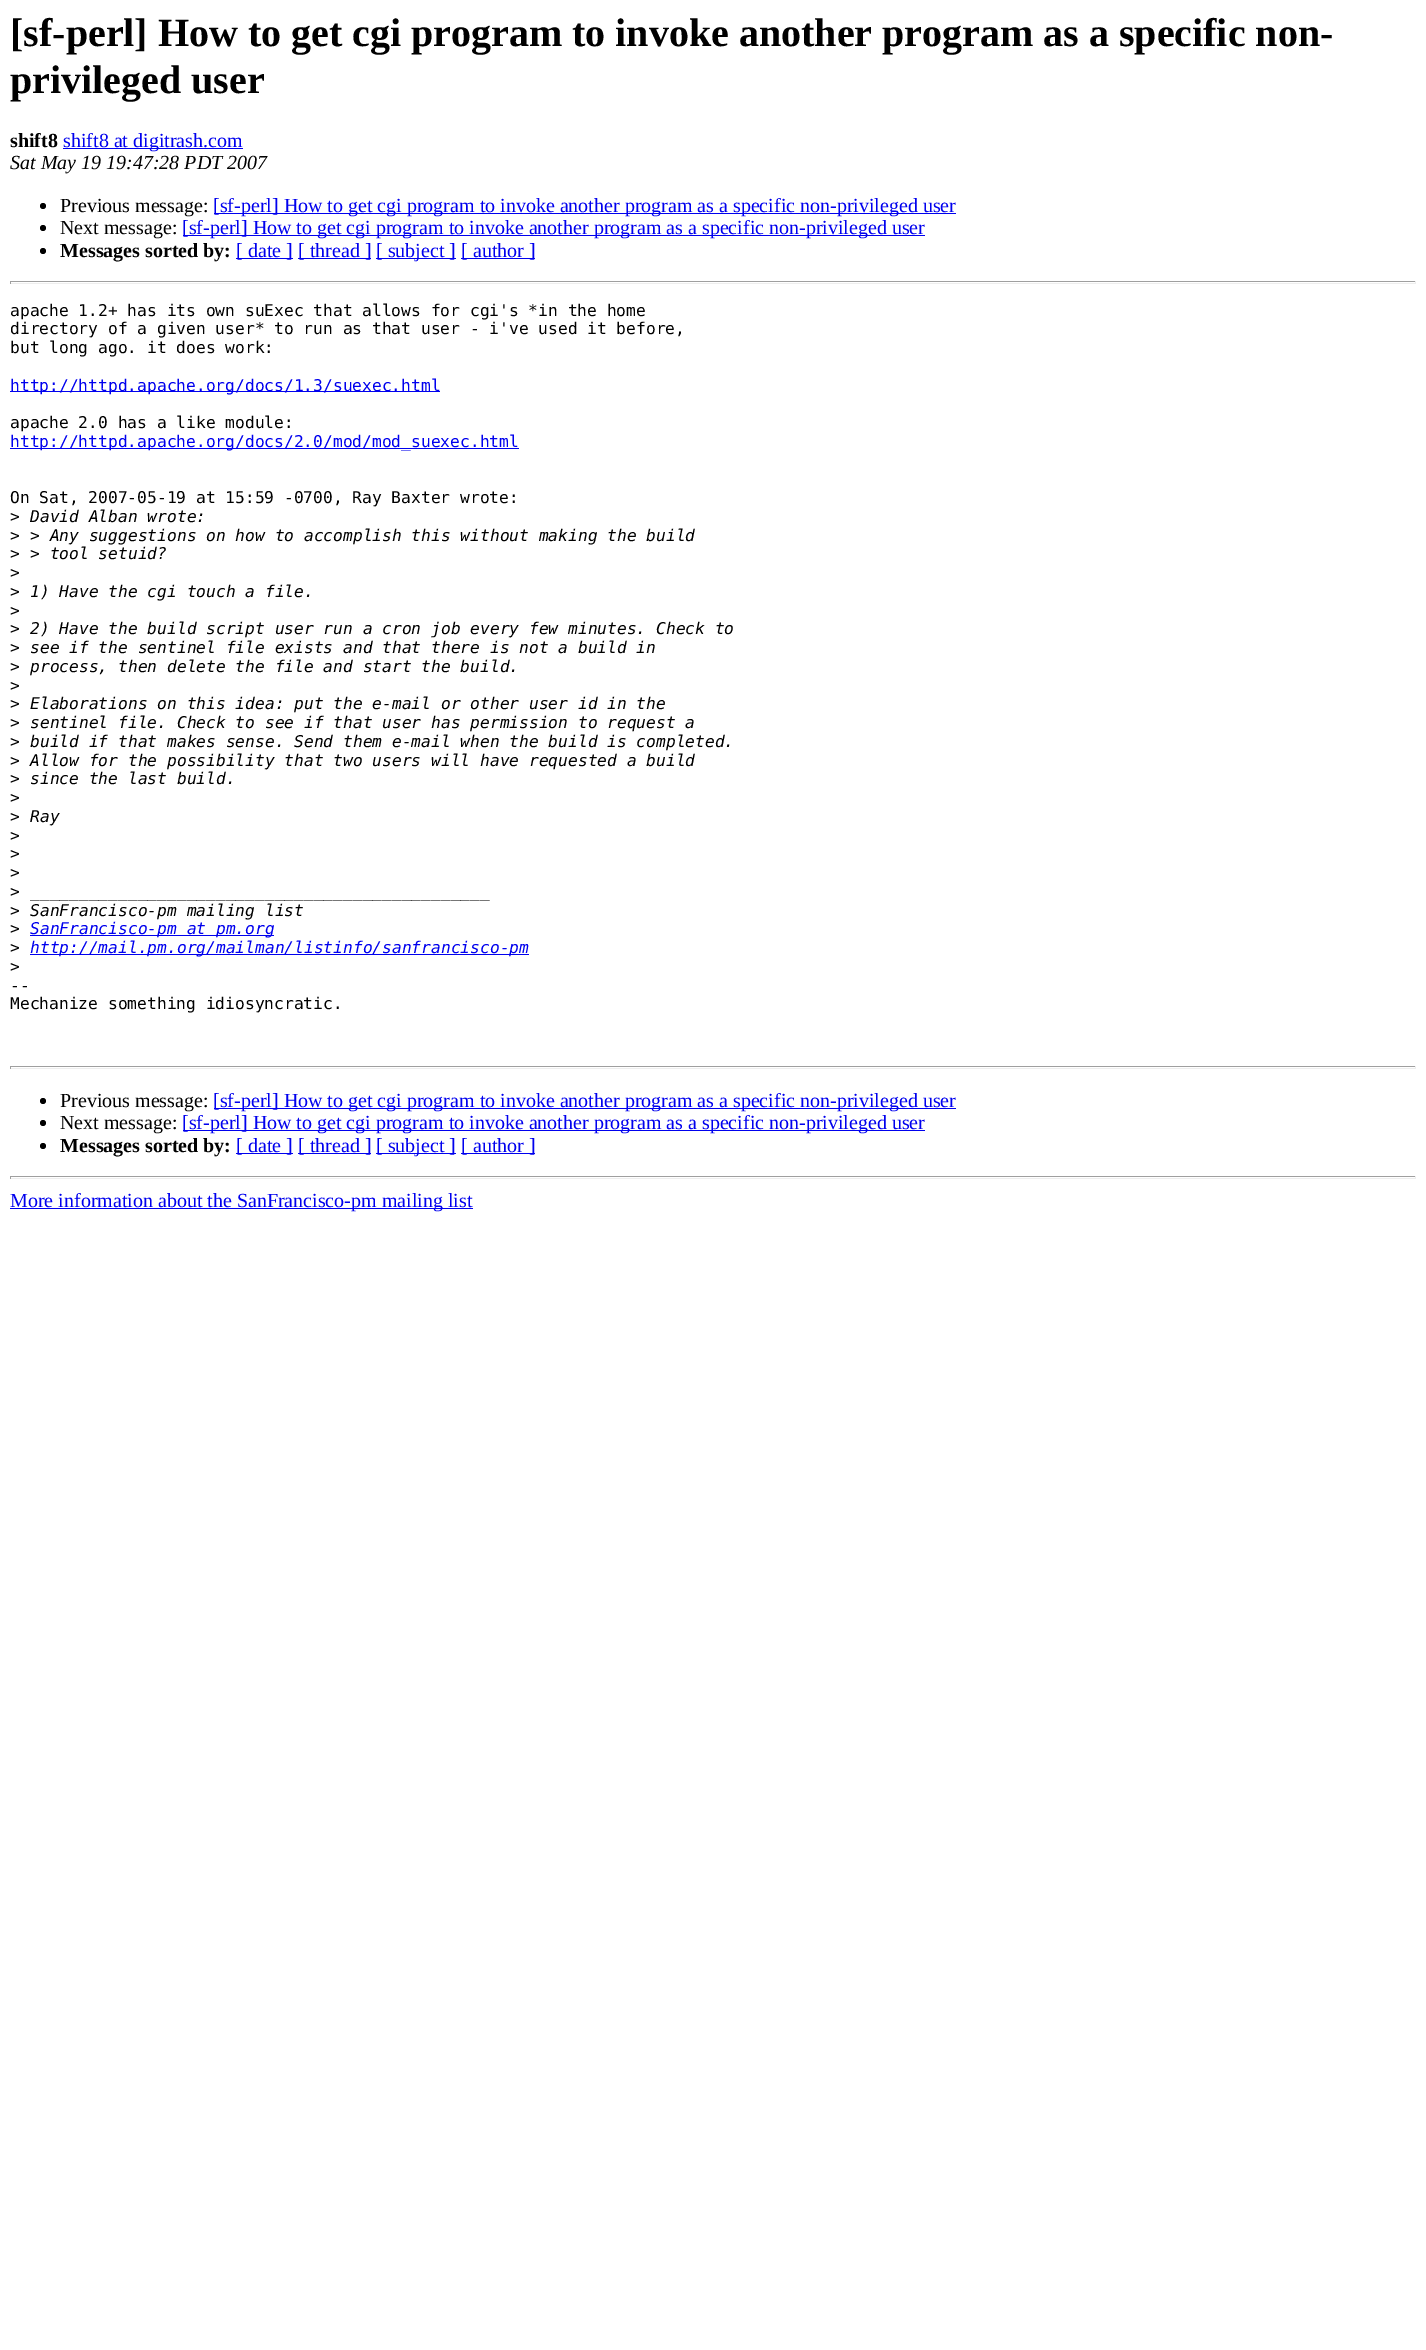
%!PS-Adobe-3.0
%%BoundingBox: 0 0 1426 2350
%%LanguageLevel: 3
%%Pages: 1
%%EndComments
%%BeginProlog
%%EndProlog
%%BeginSetup
<< /PageSize [1426 2350] >> setpagedevice
%%EndSetup
%%Page: 1 1
0 2350 translate 1 -1 scale
4 setmiterlimit
1 setgray
0 0 1426 2350 rectfill
0 0 0.933 setrgbcolor
63 148 180 1 rectfill
0 setgray
newpath 43 206 3 0 360 arc closepath fill
0 0 0.933 setrgbcolor
214 213 742 1 rectfill
0 setgray
newpath 43 228 3 0 360 arc closepath fill
0 0 0.933 setrgbcolor
183 235 742 1 rectfill
0 setgray
newpath 43 251 3 0 360 arc closepath fill
0 0 0.933 setrgbcolor
236 258 57 1 rectfill
298 258 73 1 rectfill
376 258 80 1 rectfill
461 258 74 1 rectfill
0.624 setgray
10 281 1406 1 rectfill
0.933 setgray
1415 281 1 3 rectfill
10 283 1406 1 rectfill
0.624 setgray
10 281 1 3 rectfill
0 0 0.933 setrgbcolor
10 391 430 1 rectfill
10 448 509 1 rectfill
30 935 244 1 rectfill
30 954 499 1 rectfill
0.624 setgray
10 1066 1406 1 rectfill
0.933 setgray
1415 1066 1 3 rectfill
10 1068 1406 1 rectfill
0.624 setgray
10 1066 1 3 rectfill
0 setgray
newpath 43 1101 3 0 360 arc closepath fill
0 0 0.933 setrgbcolor
214 1108 742 1 rectfill
0 setgray
newpath 43 1123 3 0 360 arc closepath fill
0 0 0.933 setrgbcolor
183 1130 742 1 rectfill
0 setgray
newpath 43 1146 3 0 360 arc closepath fill
0 0 0.933 setrgbcolor
236 1153 57 1 rectfill
298 1153 73 1 rectfill
376 1153 80 1 rectfill
461 1153 74 1 rectfill
0.624 setgray
10 1176 1406 1 rectfill
0.933 setgray
1415 1176 1 3 rectfill
10 1178 1406 1 rectfill
0.624 setgray
10 1176 1 3 rectfill
0 0 0.933 setrgbcolor
10 1208 463 1 rectfill
/LiberationSerif-Bold [40 0 0 -40 0 0] selectfont
0 setgray
10 46 moveto ([sf-perl] How to get cgi program to invoke another program as a specific non-) show
10 93 moveto (privileged user) show
/LiberationSerif-Bold [20 0 0 -20 0 0] selectfont
10 147 moveto (shift8) show
/LiberationSerif-Regular [20 0 0 -20 0 0] selectfont
0 0 0.933 setrgbcolor
63 147 moveto (shift8 at digitrash.com) show
/LiberationSerif-Italic [20 0 0 -20 0 0] selectfont
0 setgray
10 169 moveto (Sat May 19 19:47:28 PDT 2007) show
/LiberationSerif-Regular [20 0 0 -20 0 0] selectfont
60 212 moveto (Previous message:) show
0 0 0.933 setrgbcolor
213 212 moveto ([sf-perl] How to get cgi program to invoke another program as a specific non-privileged user) show
0 setgray
60 234 moveto (Next message:) show
0 0 0.933 setrgbcolor
182 234 moveto ([sf-perl] How to get cgi program to invoke another program as a specific non-privileged user) show
/LiberationSerif-Bold [20 0 0 -20 0 0] selectfont
0 setgray
60 257 moveto (Messages sorted by:) show
/LiberationSerif-Regular [20 0 0 -20 0 0] selectfont
0 0 0.933 setrgbcolor
236 257 moveto ([ date ]) show
298 257 moveto ([ thread ]) show
376 257 moveto ([ subject ]) show
461 257 moveto ([ author ]) show
/DejaVuSansMono-Regular [16.25 0 0 -16.25 0 0] selectfont
0 setgray
10 316 moveto (apache 1.2+ has its own suExec that allows for cgi's *in the home) show
10 334 moveto (directory of a given user* to run as that user - i've used it before,) show
10 353 moveto (but long ago. it does work:) show
0 0 0.933 setrgbcolor
10 391 moveto (http://httpd.apache.org/docs/1.3/suexec.html) show
0 setgray
10 428 moveto (apache 2.0 has a like module:) show
0 0 0.933 setrgbcolor
10 447 moveto (http://httpd.apache.org/docs/2.0/mod/mod_suexec.html) show
0 setgray
10 503 moveto (On Sat, 2007-05-19 at 15:59 -0700, Ray Baxter wrote:) show
10 522 moveto (>) show
/DejaVuSansMono-Italic [16.25 0 0 -16.25 0 0] selectfont
30 522 moveto (David Alban wrote:) show
/DejaVuSansMono-Regular [16.25 0 0 -16.25 0 0] selectfont
10 541 moveto (>) show
/DejaVuSansMono-Italic [16.25 0 0 -16.25 0 0] selectfont
30 541 moveto (> Any suggestions on how to accomplish this without making the build) show
/DejaVuSansMono-Regular [16.25 0 0 -16.25 0 0] selectfont
10 559 moveto (>) show
/DejaVuSansMono-Italic [16.25 0 0 -16.25 0 0] selectfont
30 559 moveto (> tool setuid?) show
/DejaVuSansMono-Regular [16.25 0 0 -16.25 0 0] selectfont
10 578 moveto (>) show
10 597 moveto (>) show
/DejaVuSansMono-Italic [16.25 0 0 -16.25 0 0] selectfont
30 597 moveto (1\) Have the cgi touch a file.) show
/DejaVuSansMono-Regular [16.25 0 0 -16.25 0 0] selectfont
10 616 moveto (>) show
10 634 moveto (>) show
/DejaVuSansMono-Italic [16.25 0 0 -16.25 0 0] selectfont
30 634 moveto (2\) Have the build script user run a cron job every few minutes. Check to) show
/DejaVuSansMono-Regular [16.25 0 0 -16.25 0 0] selectfont
10 653 moveto (>) show
/DejaVuSansMono-Italic [16.25 0 0 -16.25 0 0] selectfont
30 653 moveto (see if the sentinel file exists and that there is not a build in) show
/DejaVuSansMono-Regular [16.25 0 0 -16.25 0 0] selectfont
10 672 moveto (>) show
/DejaVuSansMono-Italic [16.25 0 0 -16.25 0 0] selectfont
30 672 moveto (process, then delete the file and start the build.) show
/DejaVuSansMono-Regular [16.25 0 0 -16.25 0 0] selectfont
10 691 moveto (>) show
10 709 moveto (>) show
/DejaVuSansMono-Italic [16.25 0 0 -16.25 0 0] selectfont
30 709 moveto (Elaborations on this idea: put the e-mail or other user id in the) show
/DejaVuSansMono-Regular [16.25 0 0 -16.25 0 0] selectfont
10 728 moveto (>) show
/DejaVuSansMono-Italic [16.25 0 0 -16.25 0 0] selectfont
30 728 moveto (sentinel file. Check to see if that user has permission to request a) show
/DejaVuSansMono-Regular [16.25 0 0 -16.25 0 0] selectfont
10 747 moveto (>) show
/DejaVuSansMono-Italic [16.25 0 0 -16.25 0 0] selectfont
30 747 moveto (build if that makes sense. Send them e-mail when the build is completed.) show
/DejaVuSansMono-Regular [16.25 0 0 -16.25 0 0] selectfont
10 766 moveto (>) show
/DejaVuSansMono-Italic [16.25 0 0 -16.25 0 0] selectfont
30 766 moveto (Allow for the possibility that two users will have requested a build) show
/DejaVuSansMono-Regular [16.25 0 0 -16.25 0 0] selectfont
10 784 moveto (>) show
/DejaVuSansMono-Italic [16.25 0 0 -16.25 0 0] selectfont
30 784 moveto (since the last build.) show
/DejaVuSansMono-Regular [16.25 0 0 -16.25 0 0] selectfont
10 803 moveto (>) show
10 822 moveto (>) show
/DejaVuSansMono-Italic [16.25 0 0 -16.25 0 0] selectfont
30 822 moveto (Ray) show
/DejaVuSansMono-Regular [16.25 0 0 -16.25 0 0] selectfont
10 841 moveto (>) show
10 859 moveto (>) show
10 878 moveto (>) show
10 897 moveto (>) show
/DejaVuSansMono-Italic [16.25 0 0 -16.25 0 0] selectfont
30 897 moveto (_______________________________________________) show
/DejaVuSansMono-Regular [16.25 0 0 -16.25 0 0] selectfont
10 916 moveto (>) show
/DejaVuSansMono-Italic [16.25 0 0 -16.25 0 0] selectfont
30 916 moveto (SanFrancisco-pm mailing list) show
/DejaVuSansMono-Regular [16.25 0 0 -16.25 0 0] selectfont
10 934 moveto (>) show
/DejaVuSansMono-Italic [16.25 0 0 -16.25 0 0] selectfont
0 0 0.933 setrgbcolor
30 934 moveto (SanFrancisco-pm at pm.org) show
/DejaVuSansMono-Regular [16.25 0 0 -16.25 0 0] selectfont
0 setgray
10 953 moveto (>) show
/DejaVuSansMono-Italic [16.25 0 0 -16.25 0 0] selectfont
0 0 0.933 setrgbcolor
30 953 moveto (http://mail.pm.org/mailman/listinfo/sanfrancisco-pm) show
/DejaVuSansMono-Regular [16.25 0 0 -16.25 0 0] selectfont
0 setgray
10 972 moveto (>) show
10 991 moveto (--) show
10 1009 moveto (Mechanize something idiosyncratic.) show
/LiberationSerif-Regular [20 0 0 -20 0 0] selectfont
60 1107 moveto (Previous message:) show
0 0 0.933 setrgbcolor
213 1107 moveto ([sf-perl] How to get cgi program to invoke another program as a specific non-privileged user) show
0 setgray
60 1129 moveto (Next message:) show
0 0 0.933 setrgbcolor
182 1129 moveto ([sf-perl] How to get cgi program to invoke another program as a specific non-privileged user) show
/LiberationSerif-Bold [20 0 0 -20 0 0] selectfont
0 setgray
60 1152 moveto (Messages sorted by:) show
/LiberationSerif-Regular [20 0 0 -20 0 0] selectfont
0 0 0.933 setrgbcolor
236 1152 moveto ([ date ]) show
298 1152 moveto ([ thread ]) show
376 1152 moveto ([ subject ]) show
461 1152 moveto ([ author ]) show
10 1207 moveto (More information about the SanFrancisco-pm mailing list) show
showpage
%%EOF
